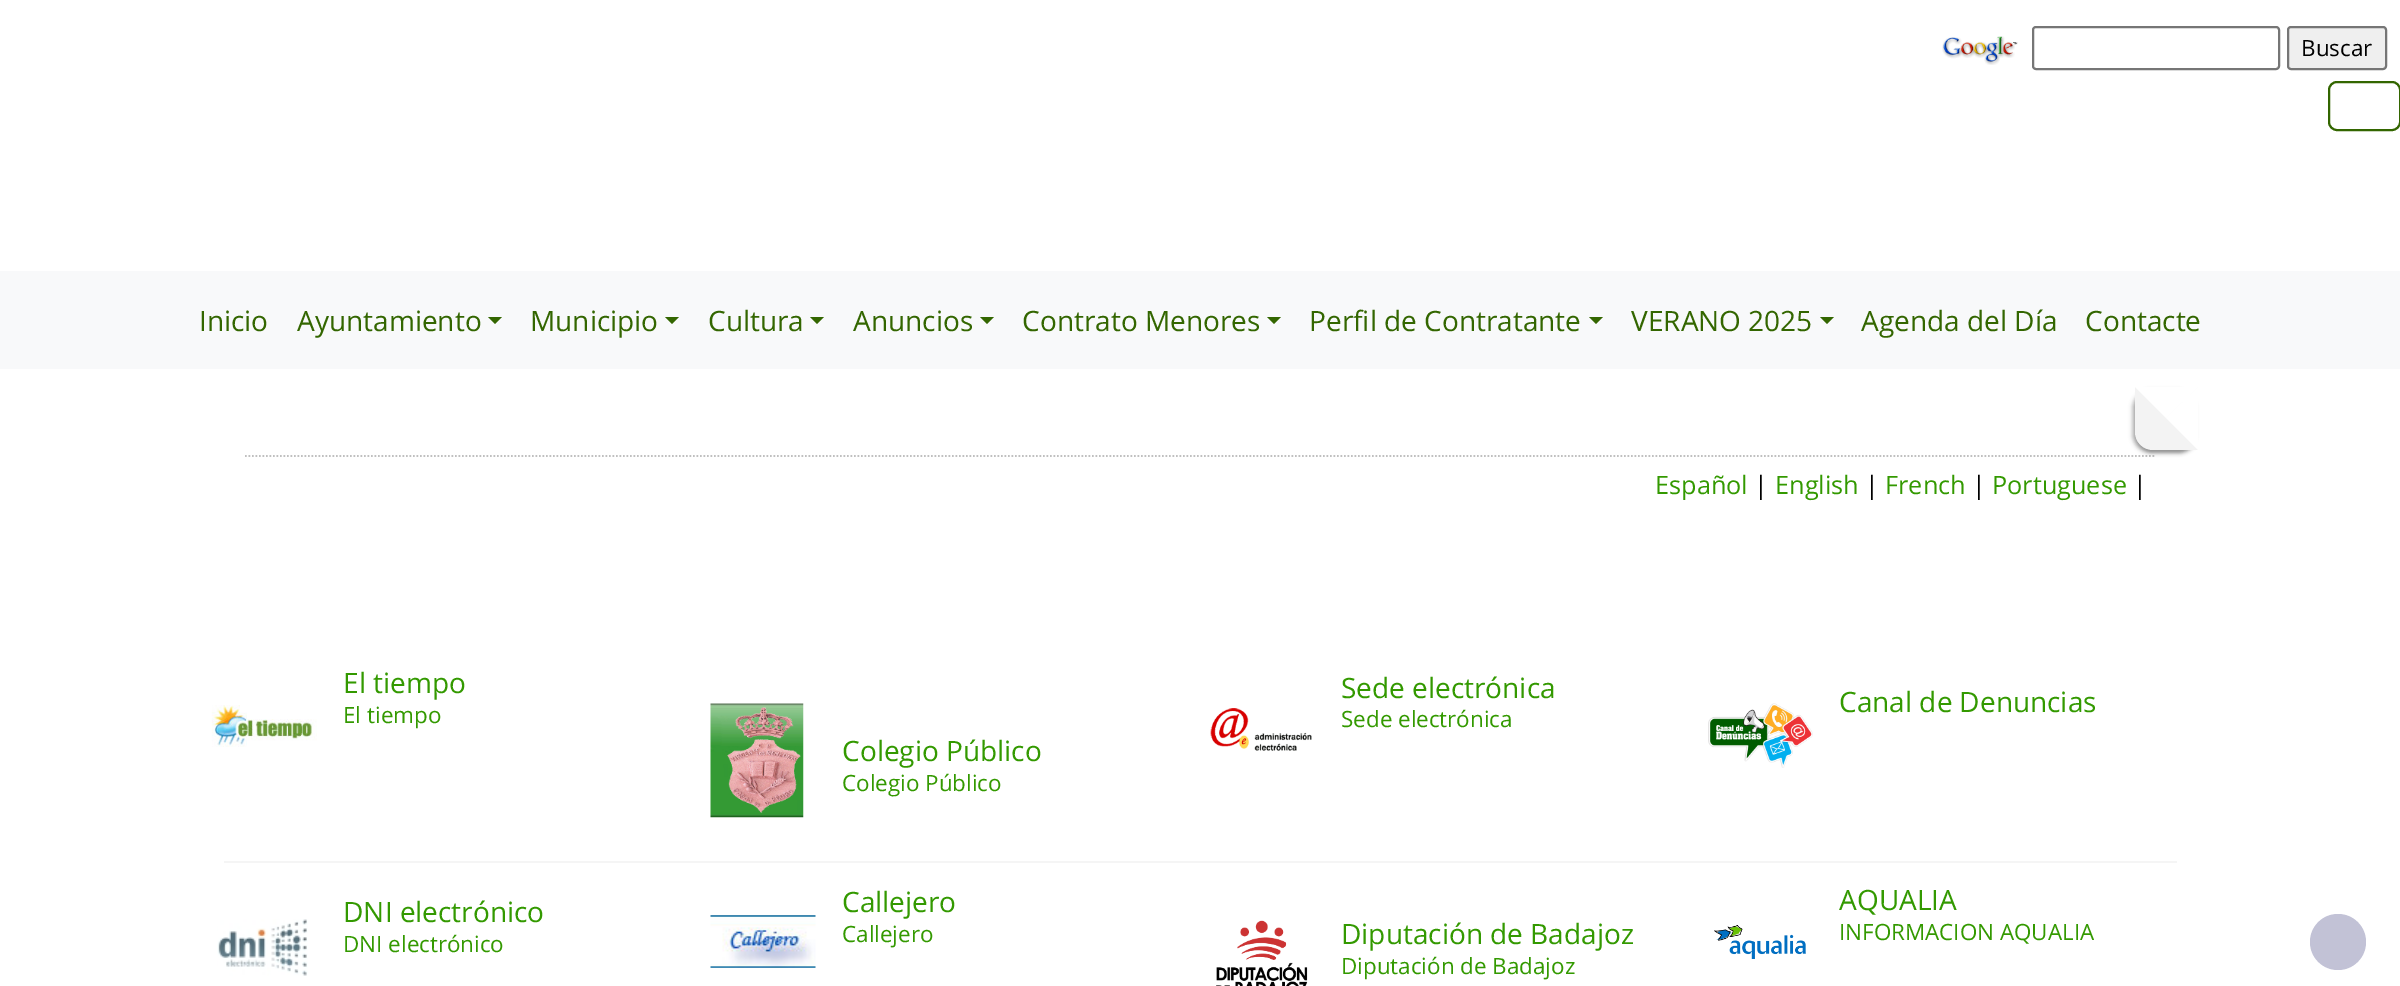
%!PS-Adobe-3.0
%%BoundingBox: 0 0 2400 986
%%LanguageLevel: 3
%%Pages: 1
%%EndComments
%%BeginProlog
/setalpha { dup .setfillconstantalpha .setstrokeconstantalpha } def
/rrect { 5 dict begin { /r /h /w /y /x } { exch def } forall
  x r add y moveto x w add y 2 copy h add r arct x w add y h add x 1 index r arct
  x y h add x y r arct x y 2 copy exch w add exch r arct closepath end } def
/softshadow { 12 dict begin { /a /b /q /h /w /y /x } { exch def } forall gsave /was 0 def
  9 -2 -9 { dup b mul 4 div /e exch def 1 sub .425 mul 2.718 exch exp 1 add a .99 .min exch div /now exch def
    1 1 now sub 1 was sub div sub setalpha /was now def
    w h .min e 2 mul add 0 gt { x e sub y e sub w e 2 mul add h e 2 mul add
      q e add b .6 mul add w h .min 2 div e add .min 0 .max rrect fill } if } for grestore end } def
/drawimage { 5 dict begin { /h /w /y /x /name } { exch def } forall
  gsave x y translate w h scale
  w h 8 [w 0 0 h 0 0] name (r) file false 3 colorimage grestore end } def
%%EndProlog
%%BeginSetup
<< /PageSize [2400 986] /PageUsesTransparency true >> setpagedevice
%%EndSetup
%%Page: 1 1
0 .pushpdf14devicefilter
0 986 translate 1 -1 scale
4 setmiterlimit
1 setgray
0 0 2400 986 rectfill
(images/1.raw) 1942 36 76 29 drawimage
0.463 setgray
2 setlinewidth
2033 27 246 42 3 rrect stroke
0.937 setgray
2288 27 98 42 3 rrect gsave fill grestore
0.463 setgray
stroke
0.2 0.4 0 setrgbcolor
2329 82 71 48 8 rrect stroke
0.973 0.976 0.98 setrgbcolor
0 271 2400 98 rectfill
0.2 0.4 0 setrgbcolor
newpath 488 317 moveto 502 317 lineto 495 324 lineto closepath fill
newpath 665 317 moveto 679 317 lineto 672 324 lineto closepath fill
newpath 810 317 moveto 824 317 lineto 817 324 lineto closepath fill
newpath 980 317 moveto 994 317 lineto 987 324 lineto closepath fill
newpath 1267 317 moveto 1281 317 lineto 1274 324 lineto closepath fill
newpath 1589 317 moveto 1603 317 lineto 1596 324 lineto closepath fill
newpath 1820 317 moveto 1834 317 lineto 1827 324 lineto closepath fill
0.753 setgray
1.8 setlinewidth
[1.75 1.75] 0 setdash
newpath 245 456 moveto 2156 456 lineto stroke
0 setgray
2132 390 63 63 18 2 0.2 softshadow
gsave
newpath 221 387 moveto 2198 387 lineto 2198 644 lineto 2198 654 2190 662 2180 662 curveto 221 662 lineto 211 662 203 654 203 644 curveto 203 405 lineto 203 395 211 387 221 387 curveto closepath clip newpath
2135 390 63 63 18 2 0.3 softshadow
grestore
0.953 setgray
newpath 2135 387 moveto 2198 387 lineto 2198 450 lineto 2153 450 lineto 2143 450 2135 442 2135 432 curveto closepath fill
1 setgray
newpath 2198 387 moveto 2166 418 lineto 2135 387 lineto closepath fill
newpath 2198 450 moveto 2198 387 lineto 2166 418 lineto closepath fill
(images/2.raw) 211 705 106 42 drawimage
(images/3.raw) 1210 708 102 43 drawimage
(images/4.raw) 1708 703 105 65 drawimage
(images/5.raw) 710 703 94 115 drawimage
0.961 setgray
224 861 1953 2 rectfill
(images/6.raw) 217 919 91 57 drawimage
(images/7.raw) 710 915 106 53 drawimage
(images/8.raw) 1216 920 92 66 drawimage
(images/9.raw) 1714 925 92 34 drawimage
0.761 0.761 0.839 setrgbcolor
newpath 2338 942 28 0 360 arc closepath fill
/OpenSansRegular-Regular [22.4 0 0 -22.4 0 0] selectfont
0 setgray
2301 56 moveto (Buscar) show
/OpenSansRegular-Regular [28 0 0 -28 0 0] selectfont
0.2 0.4 0 setrgbcolor
199 331 moveto (Inicio) show
297 331 moveto (Ayuntamiento) show
530 331 moveto (Municipio) show
708 331 moveto (Cultura) show
853 331 moveto (Anuncios) show
1022 331 moveto (Contrato Menores) show
1309 331 moveto (Perfil de Contratante) show
1631 331 moveto (VERANO 2025) show
1861 331 moveto (Agenda del Día) show
2085 331 moveto (Contacte) show
/OpenSansRegular-Regular [25.25 0 0 -25.25 0 0] selectfont
0.2 0.6 0 setrgbcolor
1655 494 moveto (Español) show
0 setgray
1754 494 moveto (|) show
0.2 0.6 0 setrgbcolor
1775 494 moveto (English) show
0 setgray
1865 494 moveto (|) show
0.2 0.6 0 setrgbcolor
1885 494 moveto (French) show
0 setgray
1972 494 moveto (|) show
0.2 0.6 0 setrgbcolor
1992 494 moveto (Portuguese) show
0 setgray
2133 494 moveto (|) show
/OpenSansRegular-Regular [28 0 0 -28 0 0] selectfont
0.2 0.6 0 setrgbcolor
343 693 moveto (El tiempo) show
/OpenSansRegular-Regular [22.4 0 0 -22.4 0 0] selectfont
343 723 moveto (El tiempo) show
/OpenSansRegular-Regular [28 0 0 -28 0 0] selectfont
1341 698 moveto (Sede electrónica) show
/OpenSansRegular-Regular [22.4 0 0 -22.4 0 0] selectfont
1341 727 moveto (Sede electrónica) show
/OpenSansRegular-Regular [28 0 0 -28 0 0] selectfont
1839 712 moveto (Canal de Denuncias) show
842 761 moveto (Colegio Público) show
/OpenSansRegular-Regular [22.4 0 0 -22.4 0 0] selectfont
842 791 moveto (Colegio Público) show
/OpenSansRegular-Regular [28 0 0 -28 0 0] selectfont
343 922 moveto (DNI electrónico) show
/OpenSansRegular-Regular [22.4 0 0 -22.4 0 0] selectfont
343 952 moveto (DNI electrónico) show
/OpenSansRegular-Regular [28 0 0 -28 0 0] selectfont
842 912 moveto (Callejero) show
/OpenSansRegular-Regular [22.4 0 0 -22.4 0 0] selectfont
842 942 moveto (Callejero) show
/OpenSansRegular-Regular [28 0 0 -28 0 0] selectfont
1341 944 moveto (Diputación de Badajoz) show
/OpenSansRegular-Regular [22.4 0 0 -22.4 0 0] selectfont
1341 974 moveto (Diputación de Badajoz) show
/OpenSansRegular-Regular [28 0 0 -28 0 0] selectfont
1839 910 moveto (AQUALIA) show
/OpenSansRegular-Regular [22.4 0 0 -22.4 0 0] selectfont
1839 940 moveto (INFORMACION AQUALIA) show
.poppdf14devicefilter showpage
%%EOF
